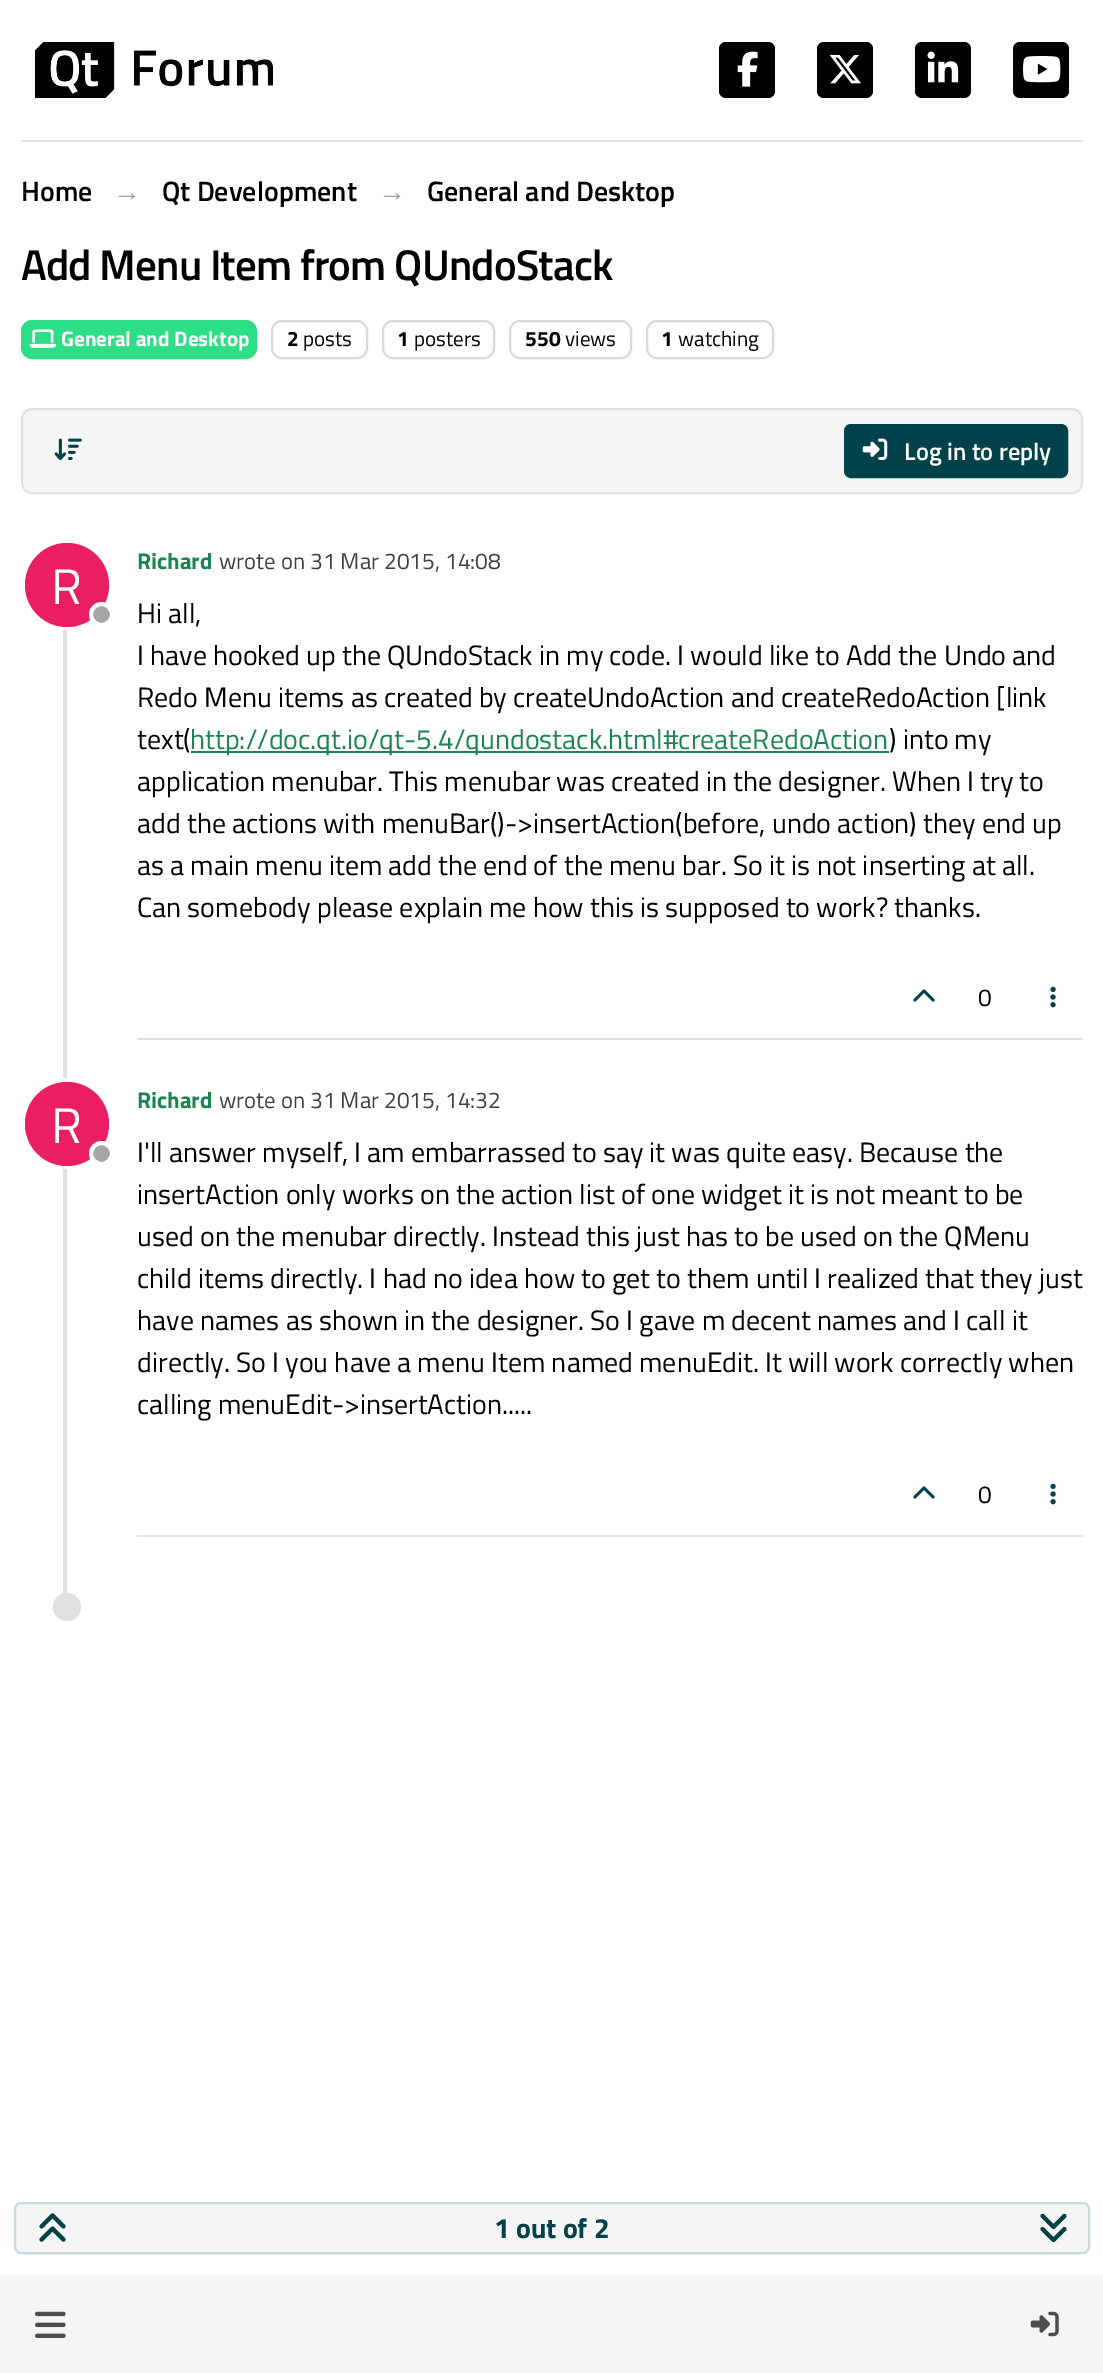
%!PS-Adobe-3.0
%%BoundingBox: 0 0 1103 2373
%%LanguageLevel: 3
%%Pages: 1
%%EndComments
%%BeginProlog
/rrect { 5 dict begin { /r /h /w /y /x } { exch def } forall
  x r add y moveto x w add y 2 copy h add r arct x w add y h add x 1 index r arct
  x y h add x y r arct x y 2 copy exch w add exch r arct closepath end } def
/drawimage { 5 dict begin { /h /w /y /x /name } { exch def } forall
  gsave x y translate w h scale
  w h 8 [w 0 0 h 0 0] name (r) file false 3 colorimage grestore end } def
%%EndProlog
%%BeginSetup
<< /PageSize [1103 2373] >> setpagedevice
%%EndSetup
%%Page: 1 1
0 2373 translate 1 -1 scale
4 setmiterlimit
1 setgray
0 0 1103 2373 rectfill
0.878 setgray
21 140 1062 2 rectfill
(images/1.raw) 35 42 238 56 drawimage
0 setgray
719 42 56 56 7 rrect fill
(images/2.raw) 737 51 21 36 drawimage
817 42 56 56 7 rrect fill
(images/3.raw) 829 54 32 30 drawimage
915 42 56 56 7 rrect fill
(images/4.raw) 927 51 32 32 drawimage
1013 42 56 56 7 rrect fill
(images/5.raw) 1023 56 38 27 drawimage
0.173 0.871 0.522 setrgbcolor
22 321 234 37 10 rrect gsave fill grestore
2 setlinewidth
stroke
(images/6.raw) 29 329 27 19 drawimage
0.851 setgray
272 321 95 37 10 rrect stroke
383 321 111 37 10 rrect stroke
510 321 121 37 10 rrect stroke
647 321 126 37 10 rrect stroke
0.961 setgray
22 409 1060 84 10 rrect gsave fill grestore
0.878 setgray
stroke
(images/7.raw) 54 438 28 22 drawimage
0 0.255 0.29 setrgbcolor
845 425 222 52 6 rrect gsave fill grestore
stroke
(images/8.raw) 862 438 26 22 drawimage
0.878 setgray
63 543 4 1050 rectfill
1 setgray
4 setlinewidth
newpath 66.5 584.5 43.5 0 360 arc closepath stroke
0.914 0.118 0.388 setrgbcolor
newpath 67 585 42 0 360 arc closepath fill
0.651 setgray
newpath 101.5 614.5 10.5 0 360 arc closepath gsave fill grestore
1 setgray
stroke
0.102 0.522 0.314 setrgbcolor
191 751 698 2 rectfill
0.878 setgray
137 1038 946 2 rectfill
(images/9.raw) 913 989 22 13 drawimage
(images/10.raw) 1050 986 6 22 drawimage
1 setgray
newpath 66.5 1123.5 43.5 0 360 arc closepath stroke
0.914 0.118 0.388 setrgbcolor
newpath 67 1124 42 0 360 arc closepath fill
0.651 setgray
newpath 101.5 1153.5 10.5 0 360 arc closepath gsave fill grestore
1 setgray
stroke
0.878 setgray
137 1535 946 2 rectfill
(images/9.raw) 913 1486 22 13 drawimage
(images/10.raw) 1050 1483 6 22 drawimage
newpath 67 1607 14 0 360 arc closepath fill
0.961 setgray
15 2203 1074 50 6 rrect gsave fill grestore
0.8 0.851 0.859 setrgbcolor
2 setlinewidth
stroke
(images/11.raw) 39 2213 27 29 drawimage
(images/12.raw) 1040 2213 27 30 drawimage
0.961 setgray
0 2275 1103 98 rectfill
(images/13.raw) 35 2311 31 27 drawimage
(images/14.raw) 1030 2311 29 26 drawimage
/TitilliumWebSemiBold-SemiBold [28 0 0 -28 0 0] selectfont
0 setgray
21 201 moveto (Home) show
/LiberationSans-Bold [28 0 0 -28 0 0] selectfont
0.62 setgray
113 201 moveto (→) show
/TitilliumWebSemiBold-SemiBold [28 0 0 -28 0 0] selectfont
0 setgray
162 201 moveto (Qt Development) show
/LiberationSans-Bold [28 0 0 -28 0 0] selectfont
0.62 setgray
378 201 moveto (→) show
/TitilliumWebSemiBold-SemiBold [28 0 0 -28 0 0] selectfont
0 setgray
427 201 moveto (General and Desktop) show
/TitilliumWebSemiBold-SemiBold [43 0 0 -43 0 0] selectfont
21 280 moveto -0.85 0 (Add Menu Item from QUndoStack) ashow
/TitilliumWeb-Bold [21 0 0 -21 0 0] selectfont
1 setgray
61 346 moveto (General and Desktop) show
0 setgray
287 346 moveto (2) show
/TitilliumWeb-Regular [21 0 0 -21 0 0] selectfont
303 346 moveto (posts) show
/TitilliumWeb-Bold [21 0 0 -21 0 0] selectfont
397 346 moveto (1) show
/TitilliumWeb-Regular [21 0 0 -21 0 0] selectfont
414 346 moveto (posters) show
/TitilliumWeb-Bold [21 0 0 -21 0 0] selectfont
525 346 moveto (550) show
/TitilliumWeb-Regular [21 0 0 -21 0 0] selectfont
565 346 moveto (views) show
/TitilliumWeb-Bold [21 0 0 -21 0 0] selectfont
661 346 moveto (1) show
/TitilliumWeb-Regular [21 0 0 -21 0 0] selectfont
678 346 moveto (watching) show
/TitilliumWebSemiBold-SemiBold [24.5 0 0 -24.5 0 0] selectfont
1 setgray
904 460 moveto (Log in to reply) show
/TitilliumWeb-Regular [50 0 0 -50 0 0] selectfont
51 604 moveto (R) show
/TitilliumWeb-Bold [22.75 0 0 -22.75 0 0] selectfont
0.102 0.522 0.314 setrgbcolor
137 569 moveto (Richard) show
/TitilliumWeb-Regular [22.75 0 0 -22.75 0 0] selectfont
0.251 setgray
219 569 moveto (wrote on 31 Mar 2015, 14:08) show
/TitilliumWeb-Regular [28 0 0 -28 0 0] selectfont
0 setgray
137 623 moveto (Hi all,) show
137 665 moveto (I have hooked up the QUndoStack in my code. I would like to Add the Undo and) show
137 707 moveto (Redo Menu items as created by createUndoAction and createRedoAction [link) show
137 749 moveto (text\() show
0.102 0.522 0.314 setrgbcolor
190 749 moveto (http://doc.qt.io/qt-5.4/qundostack.html#createRedoAction) show
0 setgray
889 749 moveto (\) into my) show
137 791 moveto (application menubar. This menubar was created in the designer. When I try to) show
137 833 moveto (add the actions with menuBar\(\)->insertAction\(before, undo action\) they end up) show
137 875 moveto (as a main menu item add the end of the menu bar. So it is not inserting at all.) show
137 917 moveto (Can somebody please explain me how this is supposed to work? thanks.) show
/TitilliumWeb-Regular [24.5 0 0 -24.5 0 0] selectfont
978 1006 moveto (0) show
/TitilliumWeb-Regular [50 0 0 -50 0 0] selectfont
1 setgray
51 1143 moveto (R) show
/TitilliumWeb-Bold [22.75 0 0 -22.75 0 0] selectfont
0.102 0.522 0.314 setrgbcolor
137 1108 moveto (Richard) show
/TitilliumWeb-Regular [22.75 0 0 -22.75 0 0] selectfont
0.251 setgray
219 1108 moveto (wrote on 31 Mar 2015, 14:32) show
/TitilliumWeb-Regular [28 0 0 -28 0 0] selectfont
0 setgray
137 1162 moveto (I'll answer myself, I am embarrassed to say it was quite easy. Because the) show
137 1204 moveto (insertAction only works on the action list of one widget it is not meant to be) show
137 1246 moveto (used on the menubar directly. Instead this just has to be used on the QMenu) show
137 1288 moveto (child items directly. I had no idea how to get to them until I realized that they just) show
137 1330 moveto (have names as shown in the designer. So I gave m decent names and I call it) show
137 1372 moveto (directly. So I you have a menu Item named menuEdit. It will work correctly when) show
137 1414 moveto (calling menuEdit->insertAction.....) show
/TitilliumWeb-Regular [24.5 0 0 -24.5 0 0] selectfont
978 1503 moveto (0) show
/TitilliumWeb-Bold [28 0 0 -28 0 0] selectfont
0 0.255 0.29 setrgbcolor
494 2238 moveto (1 out of 2) show
showpage
%%EOF
